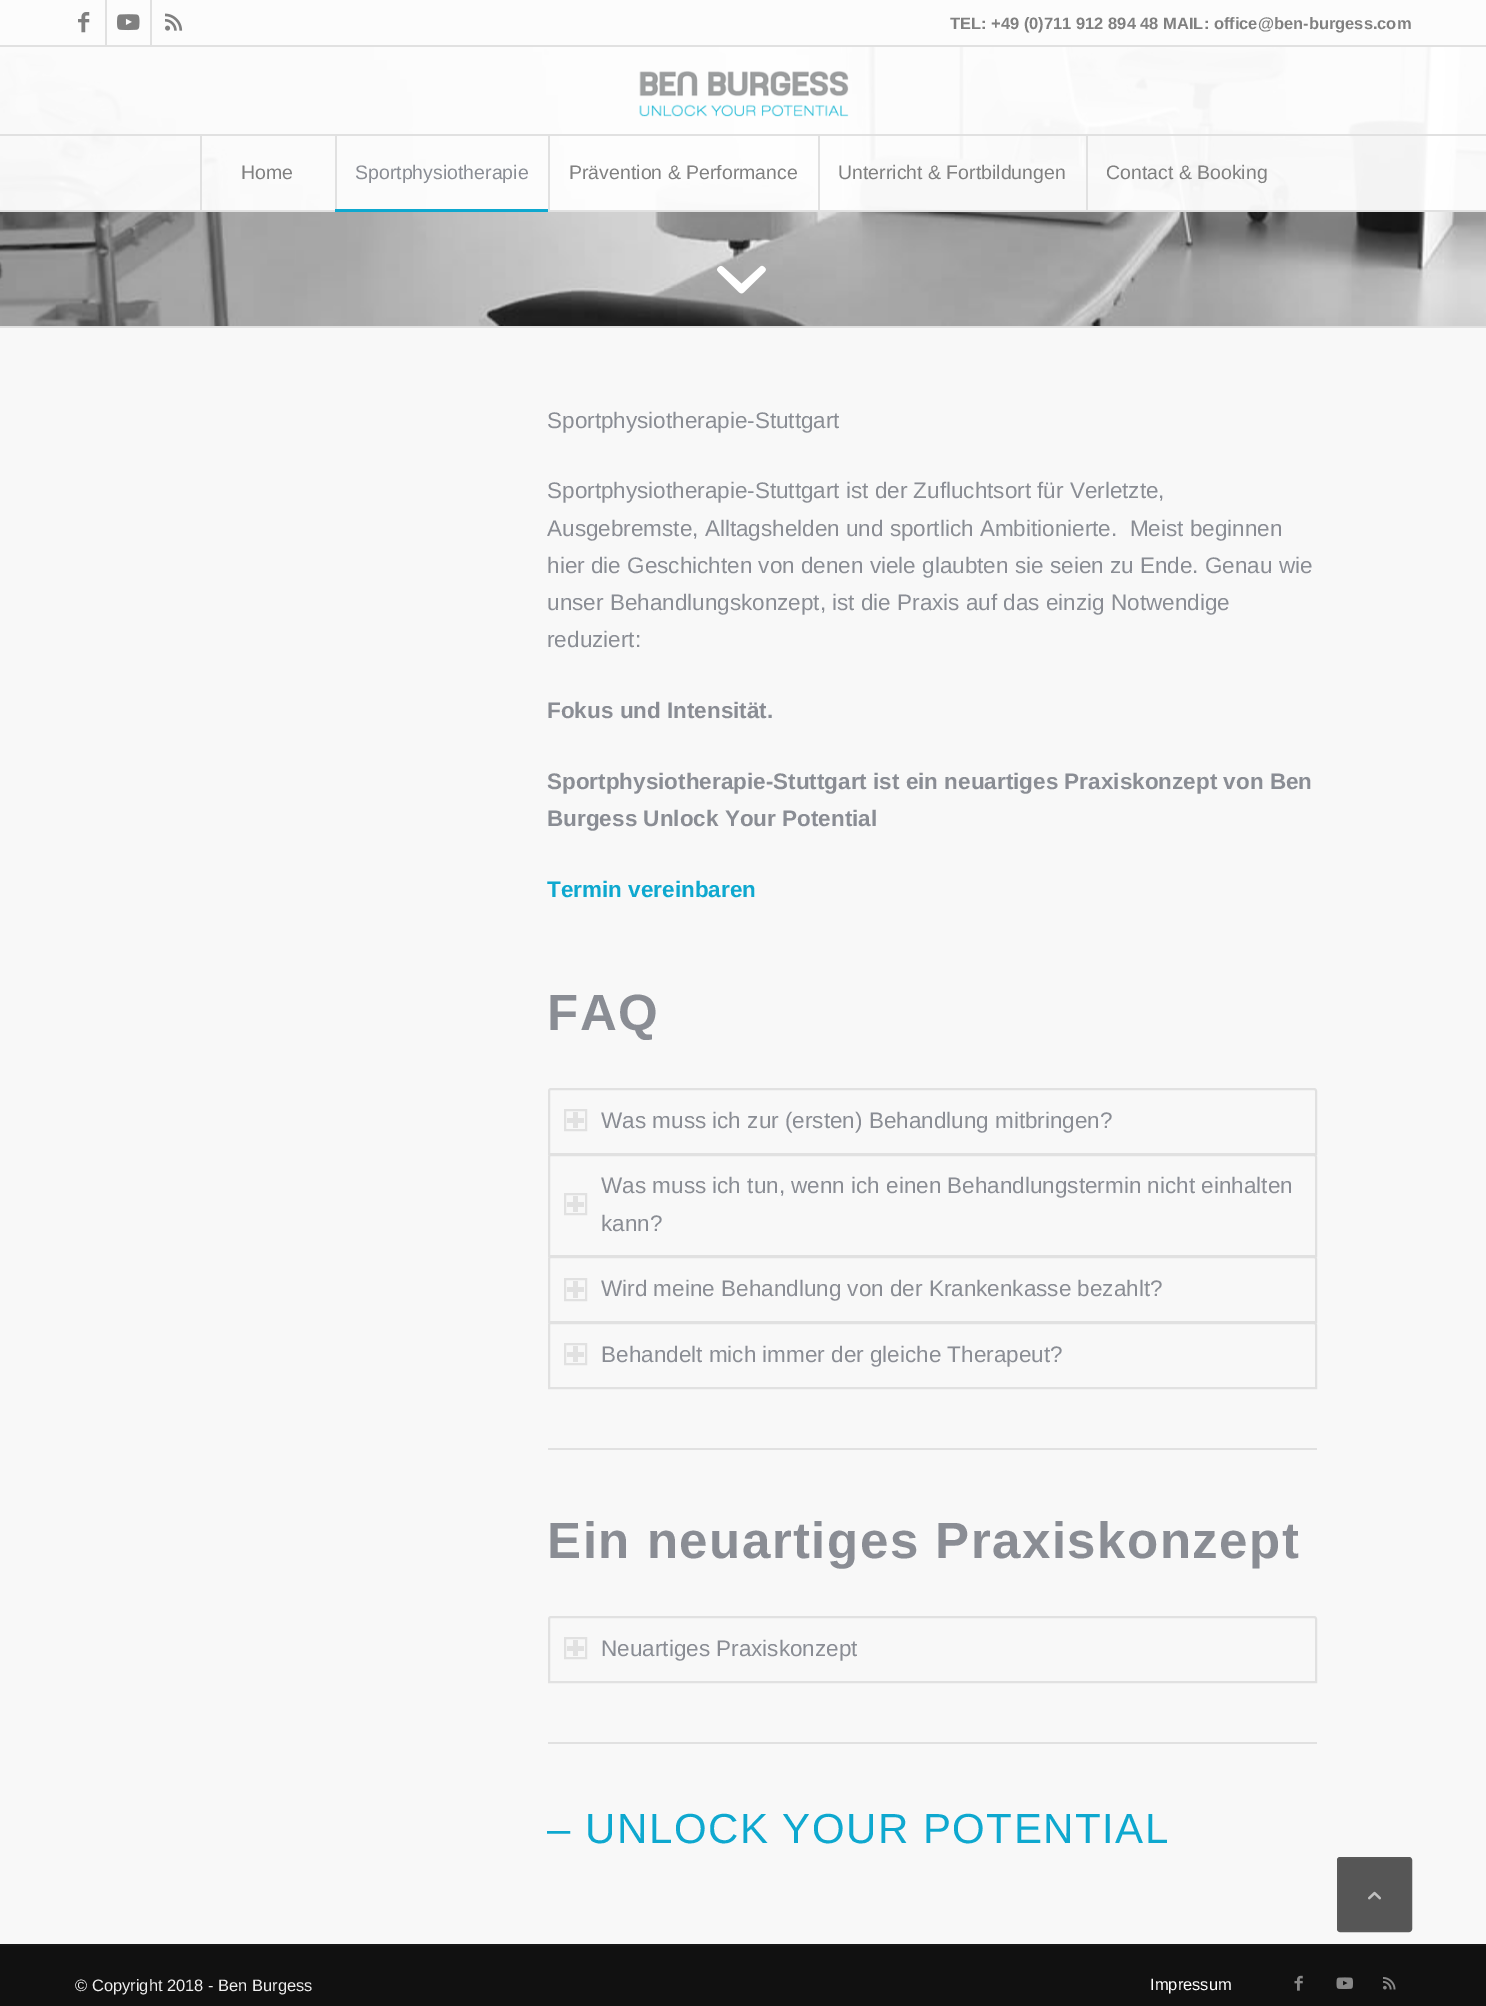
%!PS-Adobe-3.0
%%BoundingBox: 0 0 1486 2006
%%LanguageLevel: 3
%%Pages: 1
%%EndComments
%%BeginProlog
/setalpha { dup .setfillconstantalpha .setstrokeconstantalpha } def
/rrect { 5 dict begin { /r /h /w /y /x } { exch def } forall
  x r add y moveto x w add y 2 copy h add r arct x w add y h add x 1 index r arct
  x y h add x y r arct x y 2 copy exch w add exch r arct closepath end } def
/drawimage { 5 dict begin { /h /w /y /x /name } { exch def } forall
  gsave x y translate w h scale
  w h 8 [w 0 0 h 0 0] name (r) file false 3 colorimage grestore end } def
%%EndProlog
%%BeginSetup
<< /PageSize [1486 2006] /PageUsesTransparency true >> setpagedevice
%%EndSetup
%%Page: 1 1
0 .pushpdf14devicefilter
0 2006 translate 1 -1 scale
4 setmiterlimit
1 setgray
0 0 1486 2006 rectfill
0.988 setgray
0 0 1486 45 rectfill
0.882 setgray
0 45 1486 2 rectfill
105 0 2 45 rectfill
(images/1.raw) 78 12 12 21 drawimage
150 0 2 45 rectfill
(images/2.raw) 117 14 23 17 drawimage
(images/3.raw) 165 13 18 18 drawimage
(images/5.raw) 0 47 1486 279 drawimage
0.95 setalpha
1 setgray
0 47 1486 163 rectfill
1 setalpha
0.882 setgray
0 210 1486 2 rectfill
(images/4.raw) 639 71 210 46 drawimage
0 134 1486 2 rectfill
200 135 2 75 rectfill
335 135 2 75 rectfill
0.055 0.659 0.812 setrgbcolor
335 209 213 3 rectfill
0.882 setgray
548 135 2 75 rectfill
818 135 2 75 rectfill
1086 135 2 75 rectfill
(images/6.raw) 717 265 49 29 drawimage
0.973 setgray
0 328 1486 1616 rectfill
0.882 setgray
0 326 1486 2 rectfill
2 setlinewidth
newpath 551 1089 moveto 1314 1089 lineto 1315 1089 1316 1090 1316 1091 curveto 1316 1154 lineto 549 1154 lineto 549 1091 lineto 549 1090 550 1089 551 1089 curveto closepath stroke
565 1110 21 20 rectstroke
573 1112 5 16 rectfill
567 1118 17 5 rectfill
0.973 setgray
newpath 551 1155 moveto 1314 1155 lineto 1315 1155 1316 1156 1316 1157 curveto 1316 1256 lineto 549 1256 lineto 549 1157 lineto 549 1156 550 1155 551 1155 curveto closepath gsave fill grestore
0.882 setgray
stroke
565 1194 21 20 rectstroke
573 1196 5 16 rectfill
567 1202 17 5 rectfill
0.973 setgray
newpath 551 1257 moveto 1314 1257 lineto 1315 1257 1316 1258 1316 1259 curveto 1316 1322 lineto 549 1322 lineto 549 1259 lineto 549 1258 550 1257 551 1257 curveto closepath gsave fill grestore
0.882 setgray
stroke
565 1279 21 21 rectstroke
573 1281 5 17 rectfill
567 1287 17 5 rectfill
0.973 setgray
newpath 551 1323 moveto 1314 1323 lineto 1315 1323 1316 1324 1316 1325 curveto 1316 1388 lineto 549 1388 lineto 549 1325 lineto 549 1324 550 1323 551 1323 curveto closepath gsave fill grestore
0.882 setgray
stroke
565 1344 21 20 rectstroke
573 1346 5 16 rectfill
567 1352 17 5 rectfill
548 1448 769 2 rectfill
newpath 551 1617 moveto 1314 1617 lineto 1315 1617 1316 1618 1316 1619 curveto 1316 1682 lineto 549 1682 lineto 549 1619 lineto 549 1618 550 1617 551 1617 curveto closepath stroke
565 1638 21 20 rectstroke
573 1640 5 16 rectfill
567 1646 17 5 rectfill
548 1742 769 2 rectfill
0.067 setgray
0 1946 1486 60 rectfill
0.086 setgray
0 1944 1486 2 rectfill
(images/7.raw) 1294 1975 9 16 drawimage
(images/8.raw) 1336 1977 17 12 drawimage
(images/9.raw) 1383 1977 13 13 drawimage
0.337 setgray
1338 1858 73 73 2 rrect gsave fill grestore
0.353 setgray
stroke
(images/10.raw) 1368 1891 13 9 drawimage
/LiberationSans-Bold [16.5 0 0 -16.5 0 0] selectfont
0.502 setgray
950 29 moveto (TEL: +49 \(0\)711 912 894 48 MAIL: office@ben-burgess.com) show
/LiberationSans-Regular [19.5 0 0 -19.5 0 0] selectfont
241 179 moveto (Home) show
0.541 0.553 0.58 setrgbcolor
355 179 moveto (Sportphysiotherapie) show
0.502 setgray
569 179 moveto (Prävention & Performance) show
838 179 moveto (Unterricht & Fortbildungen) show
1106 179 moveto (Contact & Booking) show
/LiberationSans-Regular [22.5 0 0 -22.5 0 0] selectfont
0.541 0.553 0.58 setrgbcolor
547 428 moveto (Sportphysiotherapie-Stuttgart) show
547 498 moveto (Sportphysiotherapie-Stuttgart ist der Zufluchtsort für Verletzte,) show
547 536 moveto (Ausgebremste, Alltagshelden und sportlich Ambitionierte.  Meist beginnen) show
547 573 moveto (hier die Geschichten von denen viele glaubten sie seien zu Ende. Genau wie) show
547 610 moveto (unser Behandlungskonzept, ist die Praxis auf das einzig Notwendige) show
547 647 moveto (reduziert:) show
/LiberationSans-Bold [22.5 0 0 -22.5 0 0] selectfont
547 718 moveto (Fokus und Intensität.) show
547 789 moveto (Sportphysiotherapie-Stuttgart ist ein neuartiges Praxiskonzept von Ben) show
547 826 moveto (Burgess Unlock Your Potential) show
0.055 0.659 0.812 setrgbcolor
547 897 moveto (Termin vereinbaren) show
/LiberationSans-Bold [51 0 0 -51 0 0] selectfont
0.541 0.553 0.58 setrgbcolor
547 1030 moveto 1.5 0 (FAQ) ashow
/LiberationSans-Regular [22.5 0 0 -22.5 0 0] selectfont
601 1128 moveto (Was muss ich zur \(ersten\) Behandlung mitbringen?) show
601 1193 moveto (Was muss ich tun, wenn ich einen Behandlungstermin nicht einhalten) show
601 1231 moveto (kann?) show
601 1296 moveto (Wird meine Behandlung von der Krankenkasse bezahlt?) show
601 1362 moveto (Behandelt mich immer der gleiche Therapeut?) show
/LiberationSans-Bold [51 0 0 -51 0 0] selectfont
547 1558 moveto 1.5 0 (Ein neuartiges Praxiskonzept) ashow
/LiberationSans-Regular [22.5 0 0 -22.5 0 0] selectfont
601 1656 moveto (Neuartiges Praxiskonzept) show
/LiberationSans-Regular [42 0 0 -42 0 0] selectfont
0.055 0.659 0.812 setrgbcolor
547 1843 moveto 1.5 0 (– UNLOCK YOUR POTENTIAL) ashow
/LiberationSans-Regular [16.5 0 0 -16.5 0 0] selectfont
0.933 setgray
75 1991 moveto (© Copyright 2018 - Ben Burgess) show
1 setgray
1150 1990 moveto (Impressum) show
.poppdf14devicefilter showpage
%%EOF
